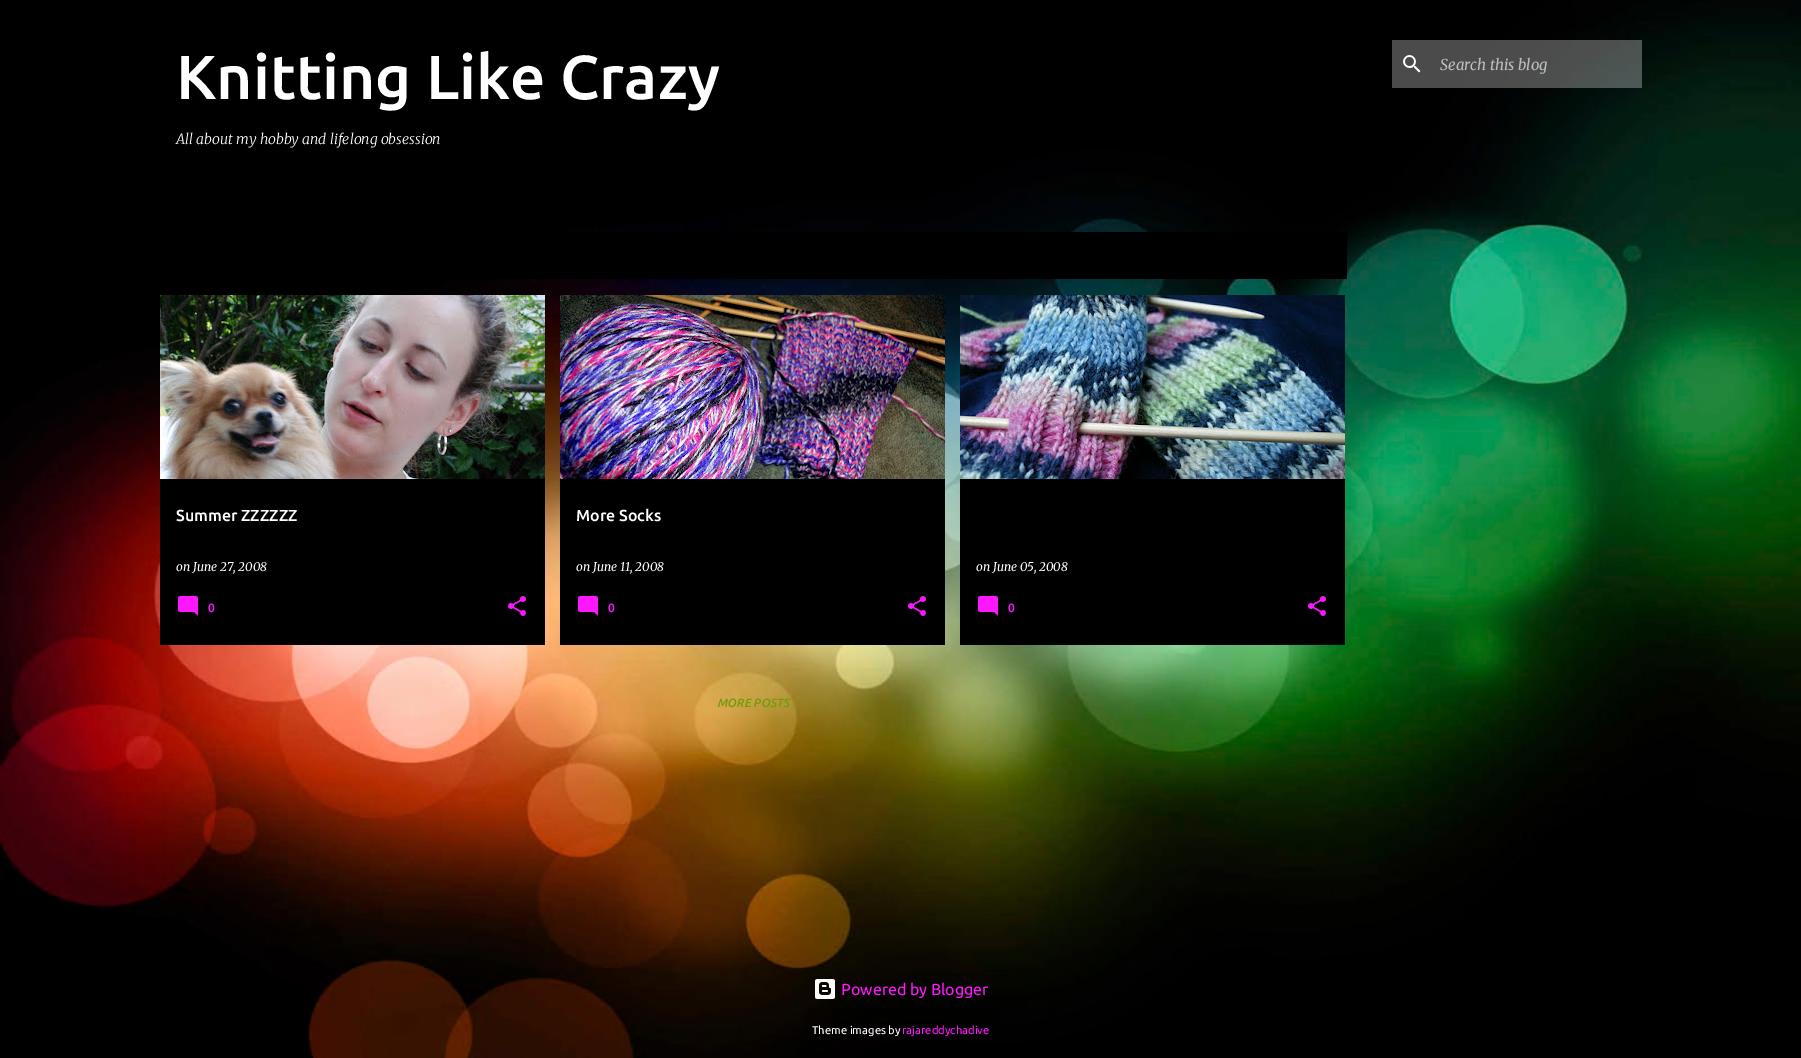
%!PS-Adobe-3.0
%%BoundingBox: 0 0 1801 1058
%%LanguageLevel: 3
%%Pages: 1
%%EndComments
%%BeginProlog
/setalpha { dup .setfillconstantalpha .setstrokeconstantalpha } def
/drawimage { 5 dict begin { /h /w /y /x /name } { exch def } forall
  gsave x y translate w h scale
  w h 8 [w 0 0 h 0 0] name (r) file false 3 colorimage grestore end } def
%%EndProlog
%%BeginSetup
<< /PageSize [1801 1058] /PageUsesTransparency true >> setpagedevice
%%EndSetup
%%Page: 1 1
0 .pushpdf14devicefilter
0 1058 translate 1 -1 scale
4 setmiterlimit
1 setgray
0 0 1801 1058 rectfill
(images/1.raw) 0 0 1801 1058 drawimage
0.3 setalpha
0.976 setgray
1392 40 250 48 rectfill
1 setalpha
(images/2.raw) 1403 55 18 18 drawimage
0 setgray
452 232 895 47 rectfill
160 479 385 166 rectfill
(images/3.raw) 160 295 385 184 drawimage
(images/4.raw) 178 596 20 20 drawimage
(images/5.raw) 508 596 18 20 drawimage
560 479 385 166 rectfill
(images/6.raw) 560 295 385 184 drawimage
(images/4.raw) 578 596 20 20 drawimage
(images/7.raw) 908 596 18 20 drawimage
960 479 385 166 rectfill
(images/8.raw) 960 295 385 184 drawimage
(images/4.raw) 978 596 20 20 drawimage
(images/7.raw) 1308 596 18 20 drawimage
(images/9.raw) 815 979 20 20 drawimage
/Ubuntu-Medium [62 0 0 -62 0 0] selectfont
1 setgray
176 99 moveto (Knitting Like Crazy) show
/Merriweather-LightItalic [14 0 0 -14 0 0] selectfont
176 144 moveto (All about my hobby and lifelong obsession) show
/Merriweather-Italic [15 0 0 -15 0 0] selectfont
0.745 setgray
1440 70 moveto (Search this blog) show
/Ubuntu-Medium [16 0 0 -16 0 0] selectfont
1 setgray
176 521 moveto (Summer ZZZZZZ) show
/Merriweather-Italic [12 0 0 -12 0 0] selectfont
176 571 moveto (on June 27, 2008) show
/Ubuntu-Medium [12 0 0 -12 0 0] selectfont
1 0.094 1 setrgbcolor
208 612 moveto (0) show
/Ubuntu-Medium [16 0 0 -16 0 0] selectfont
1 setgray
576 521 moveto (More Socks) show
/Merriweather-Italic [12 0 0 -12 0 0] selectfont
576 571 moveto (on June 11, 2008) show
/Ubuntu-Medium [12 0 0 -12 0 0] selectfont
1 0.094 1 setrgbcolor
608 612 moveto (0) show
/Merriweather-Italic [12 0 0 -12 0 0] selectfont
1 setgray
976 571 moveto (on June 05, 2008) show
/Ubuntu-Medium [12 0 0 -12 0 0] selectfont
1 0.094 1 setrgbcolor
1008 612 moveto (0) show
/Ubuntu-MediumItalic [12 0 0 -12 0 0] selectfont
0.447 0.612 0.043 setrgbcolor
717 707 moveto (MORE POSTS) show
/Ubuntu-Regular [16 0 0 -16 0 0] selectfont
1 0.094 1 setrgbcolor
841 995 moveto (Powered by Blogger) show
/Ubuntu-Regular [11.25 0 0 -11.25 0 0] selectfont
1 setgray
812 1034 moveto (Theme images by) show
1 0.094 1 setrgbcolor
902 1034 moveto (rajareddychadive) show
.poppdf14devicefilter showpage
%%EOF
